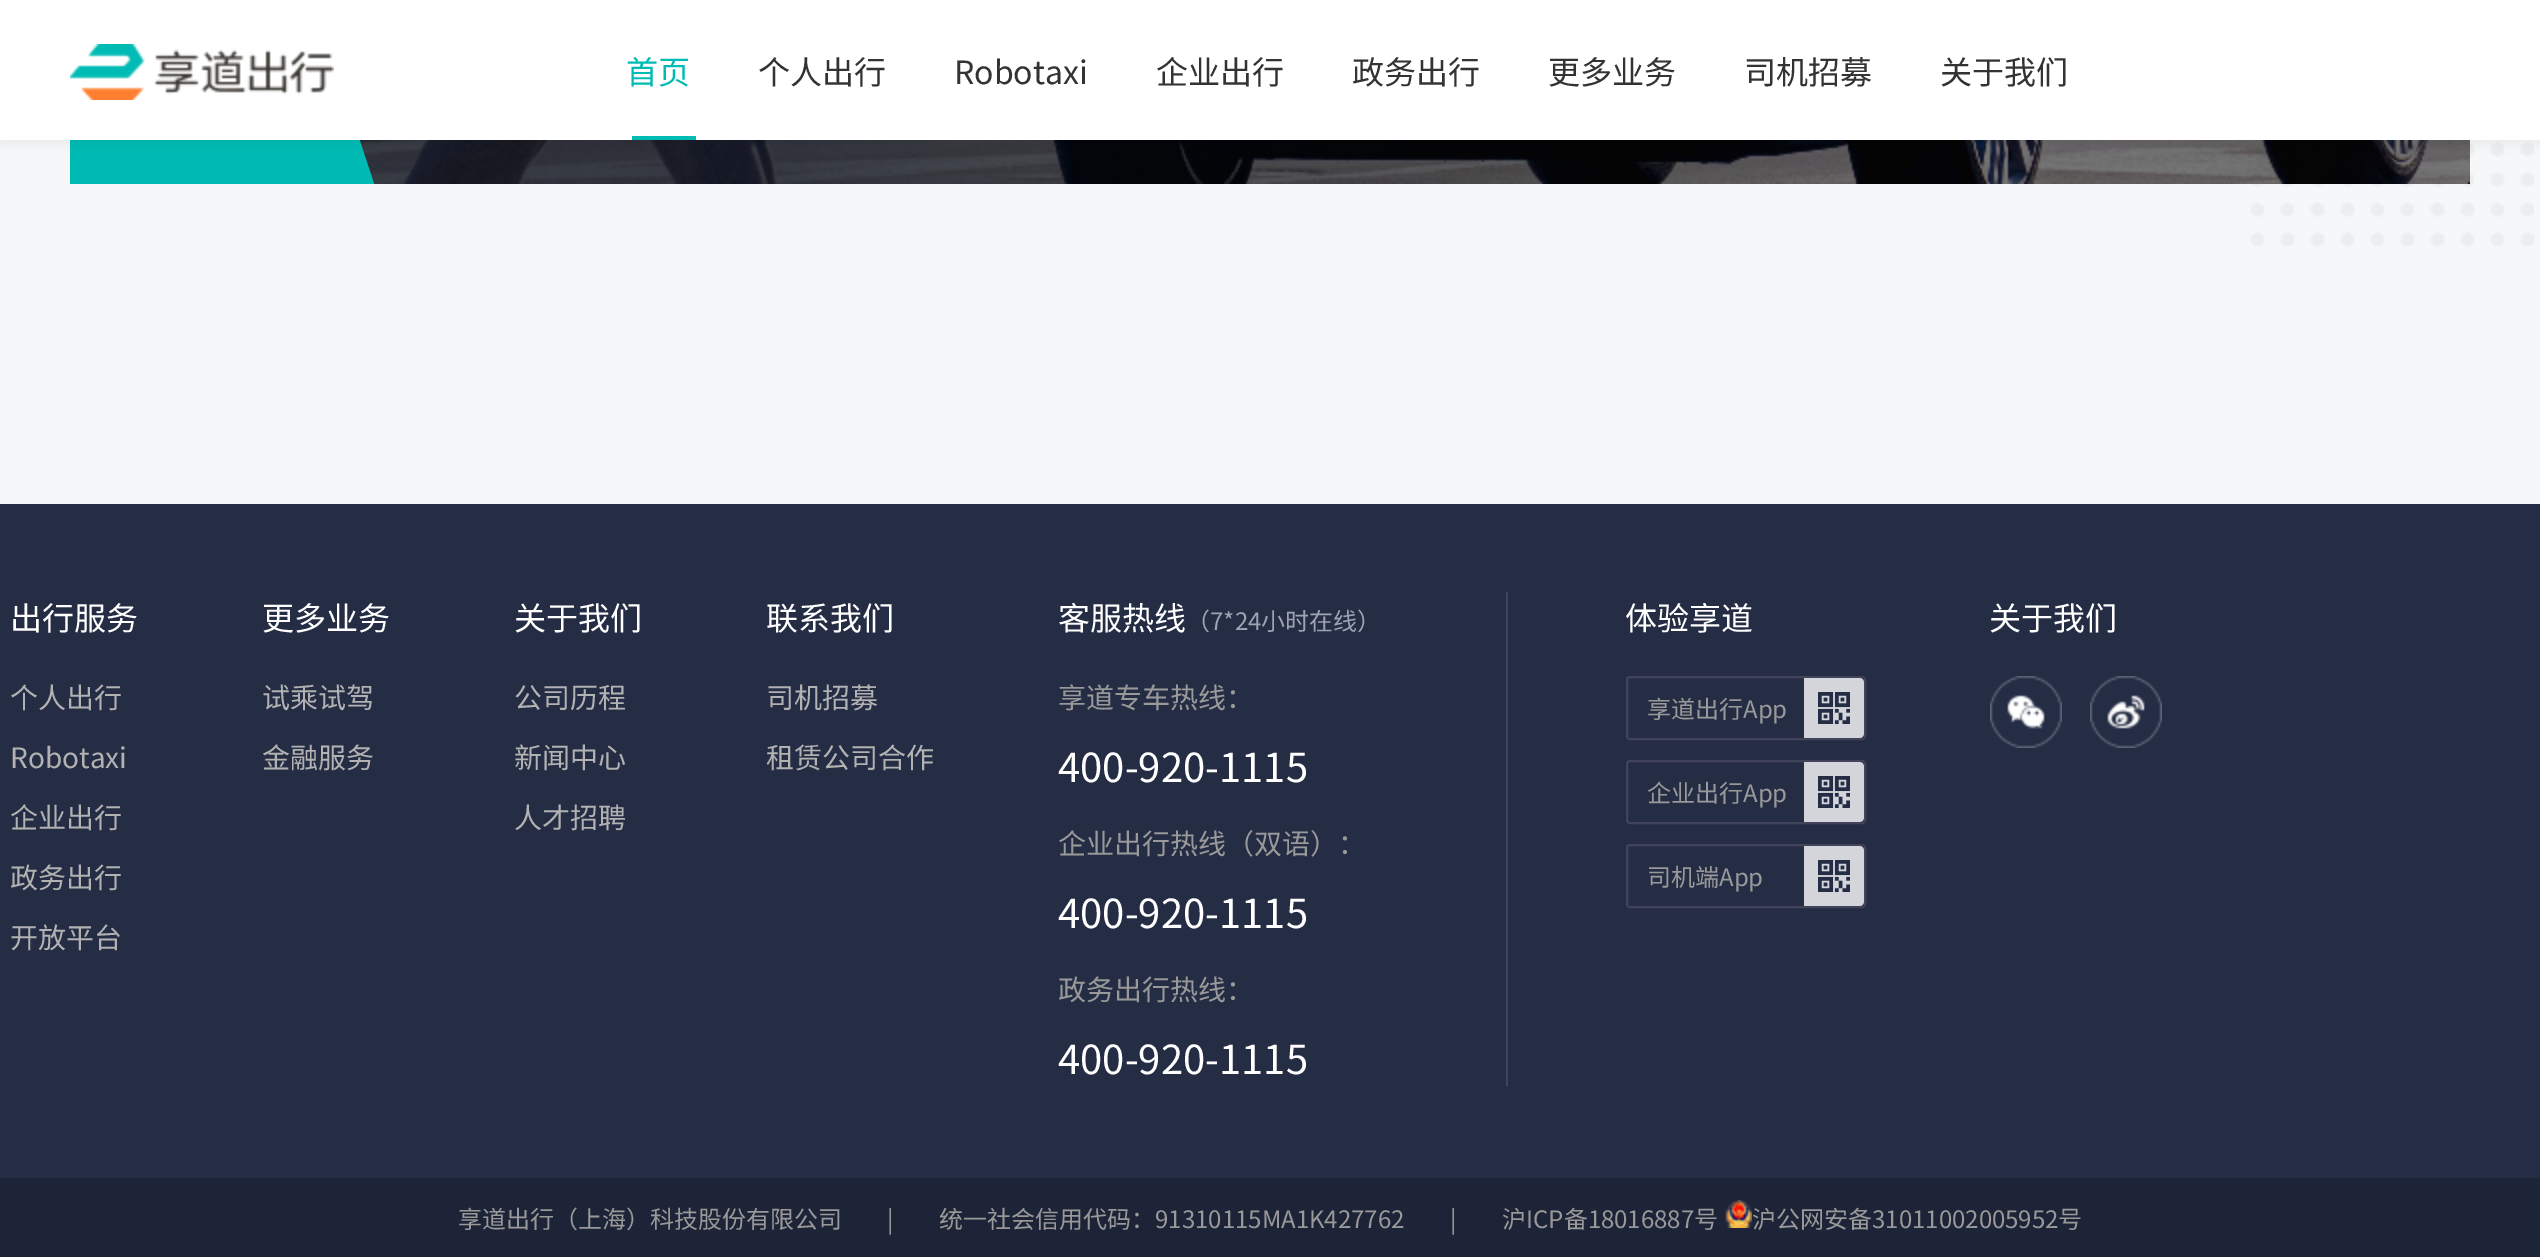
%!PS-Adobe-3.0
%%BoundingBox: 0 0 2540 1257
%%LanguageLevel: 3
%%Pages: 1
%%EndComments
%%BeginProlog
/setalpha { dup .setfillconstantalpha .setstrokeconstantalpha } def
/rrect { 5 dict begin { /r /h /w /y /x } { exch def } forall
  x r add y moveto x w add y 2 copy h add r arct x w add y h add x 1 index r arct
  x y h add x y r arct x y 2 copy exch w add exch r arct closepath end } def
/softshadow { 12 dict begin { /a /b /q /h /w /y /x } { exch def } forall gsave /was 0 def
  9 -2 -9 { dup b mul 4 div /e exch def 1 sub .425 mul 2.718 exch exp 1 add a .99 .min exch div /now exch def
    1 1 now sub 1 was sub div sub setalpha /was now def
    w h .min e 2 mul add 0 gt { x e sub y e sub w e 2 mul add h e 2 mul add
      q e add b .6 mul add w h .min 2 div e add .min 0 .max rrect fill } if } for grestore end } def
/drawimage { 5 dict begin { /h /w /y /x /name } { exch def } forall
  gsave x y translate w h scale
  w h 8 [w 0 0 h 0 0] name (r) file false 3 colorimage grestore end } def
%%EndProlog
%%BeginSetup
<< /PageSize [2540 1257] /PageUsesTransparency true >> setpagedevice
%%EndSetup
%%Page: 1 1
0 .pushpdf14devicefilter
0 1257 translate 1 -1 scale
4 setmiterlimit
0.961 0.969 0.976 setrgbcolor
0 0 2540 1257 rectfill
(images/3.raw) 2250 142 284 105 drawimage
(images/2.raw) 359 140 2111 44 drawimage
0.5 setalpha
0 setgray
359 140 2111 44 rectfill
1 setalpha
0 0.733 0.706 setrgbcolor
70 140 216 44 rectfill
gsave
70 0 2400 184 rectclip
newpath 253 85 moveto 333 59 lineto 378 196 lineto 298 222 lineto closepath fill
grestore
0 setgray
0 4 2540 140 0 6 0.05 softshadow
1 setgray
0 0 2540 140 rectfill
(images/1.raw) 70 44 264 56 drawimage
0 0.733 0.706 setrgbcolor
632 136 64 4 rectfill
0.145 0.176 0.271 setrgbcolor
0 504 2540 674 rectfill
0.255 0.263 0.353 setrgbcolor
1506 592 2 494 rectfill
2 setlinewidth
1627 677 238 62 3 rrect stroke
(images/4.raw) 1804 678 60 60 drawimage
1627 761 238 62 3 rrect stroke
(images/4.raw) 1804 762 60 60 drawimage
1627 845 238 62 3 rrect stroke
(images/4.raw) 1804 846 60 60 drawimage
(images/5.raw) 1990 676 72 72 drawimage
(images/6.raw) 2090 676 72 72 drawimage
0.114 0.141 0.216 setrgbcolor
0 1178 2540 79 rectfill
(images/7.raw) 1725 1200 27 28 drawimage
/NotoSansCJKSC-Regular [32 0 0 -32 0 0] selectfont
0 0.733 0.706 setrgbcolor
626 84 moveto (首页) show
0.2 setgray
758 84 moveto (个人出行) show
954 84 moveto (Robotaxi) show
1156 84 moveto (企业出行) show
1352 84 moveto (政务出行) show
1548 84 moveto (更多业务) show
1744 84 moveto (司机招募) show
1940 84 moveto (关于我们) show
1 setgray
10 630 moveto (出行服务) show
/NotoSansCJKSC-Regular [28 0 0 -28 0 0] selectfont
0.698 setgray
10 708 moveto (个人出行) show
10 768 moveto (Robotaxi) show
10 828 moveto (企业出行) show
10 888 moveto (政务出行) show
10 948 moveto (开放平台) show
/NotoSansCJKSC-Regular [32 0 0 -32 0 0] selectfont
1 setgray
262 630 moveto (更多业务) show
/NotoSansCJKSC-Regular [28 0 0 -28 0 0] selectfont
0.698 setgray
262 708 moveto (试乘试驾) show
262 768 moveto (金融服务) show
/NotoSansCJKSC-Regular [32 0 0 -32 0 0] selectfont
1 setgray
514 630 moveto (关于我们) show
/NotoSansCJKSC-Regular [28 0 0 -28 0 0] selectfont
0.698 setgray
514 708 moveto (公司历程) show
514 768 moveto (新闻中心) show
514 828 moveto (人才招聘) show
/NotoSansCJKSC-Regular [32 0 0 -32 0 0] selectfont
1 setgray
766 630 moveto (联系我们) show
/NotoSansCJKSC-Regular [28 0 0 -28 0 0] selectfont
0.698 setgray
766 708 moveto (司机招募) show
766 768 moveto (租赁公司合作) show
/NotoSansCJKSC-Regular [32 0 0 -32 0 0] selectfont
1 setgray
1058 630 moveto (客服热线) show
/NotoSansCJKSC-Regular [24 0 0 -24 0 0] selectfont
0.62 0.639 0.698 setrgbcolor
1186 630 moveto (（7*24小时在线）) show
/NotoSansCJKSC-Regular [28 0 0 -28 0 0] selectfont
0.6 setgray
1058 708 moveto (享道专车热线：) show
/NotoSansCJKSC-Regular [40 0 0 -40 0 0] selectfont
1 setgray
1058 782 moveto (400-920-1115) show
/NotoSansCJKSC-Regular [28 0 0 -28 0 0] selectfont
0.6 setgray
1058 854 moveto (企业出行热线（双语）：) show
/NotoSansCJKSC-Regular [40 0 0 -40 0 0] selectfont
1 setgray
1058 928 moveto (400-920-1115) show
/NotoSansCJKSC-Regular [28 0 0 -28 0 0] selectfont
0.6 setgray
1058 1000 moveto (政务出行热线：) show
/NotoSansCJKSC-Regular [40 0 0 -40 0 0] selectfont
1 setgray
1058 1074 moveto (400-920-1115) show
/NotoSansCJKSC-Regular [32 0 0 -32 0 0] selectfont
1625 630 moveto (体验享道) show
/NotoSansCJKSC-Regular [24 0 0 -24 0 0] selectfont
0.6 setgray
1647 718 moveto (享道出行App) show
1647 802 moveto (企业出行App) show
1647 886 moveto (司机端App) show
/NotoSansCJKSC-Regular [32 0 0 -32 0 0] selectfont
1 setgray
1989 630 moveto (关于我们) show
/NotoSansCJKSC-Regular [24 0 0 -24 0 0] selectfont
0.6 setgray
458 1228 moveto (享道出行（上海）科技股份有限公司) show
887 1228 moveto (|) show
939 1228 moveto (统一社会信用代码：91310115MA1K427762) show
1450 1228 moveto (|) show
1502 1228 moveto (沪ICP备18016887号) show
1752 1228 moveto (沪公网安备31011002005952号) show
.poppdf14devicefilter showpage
%%EOF
